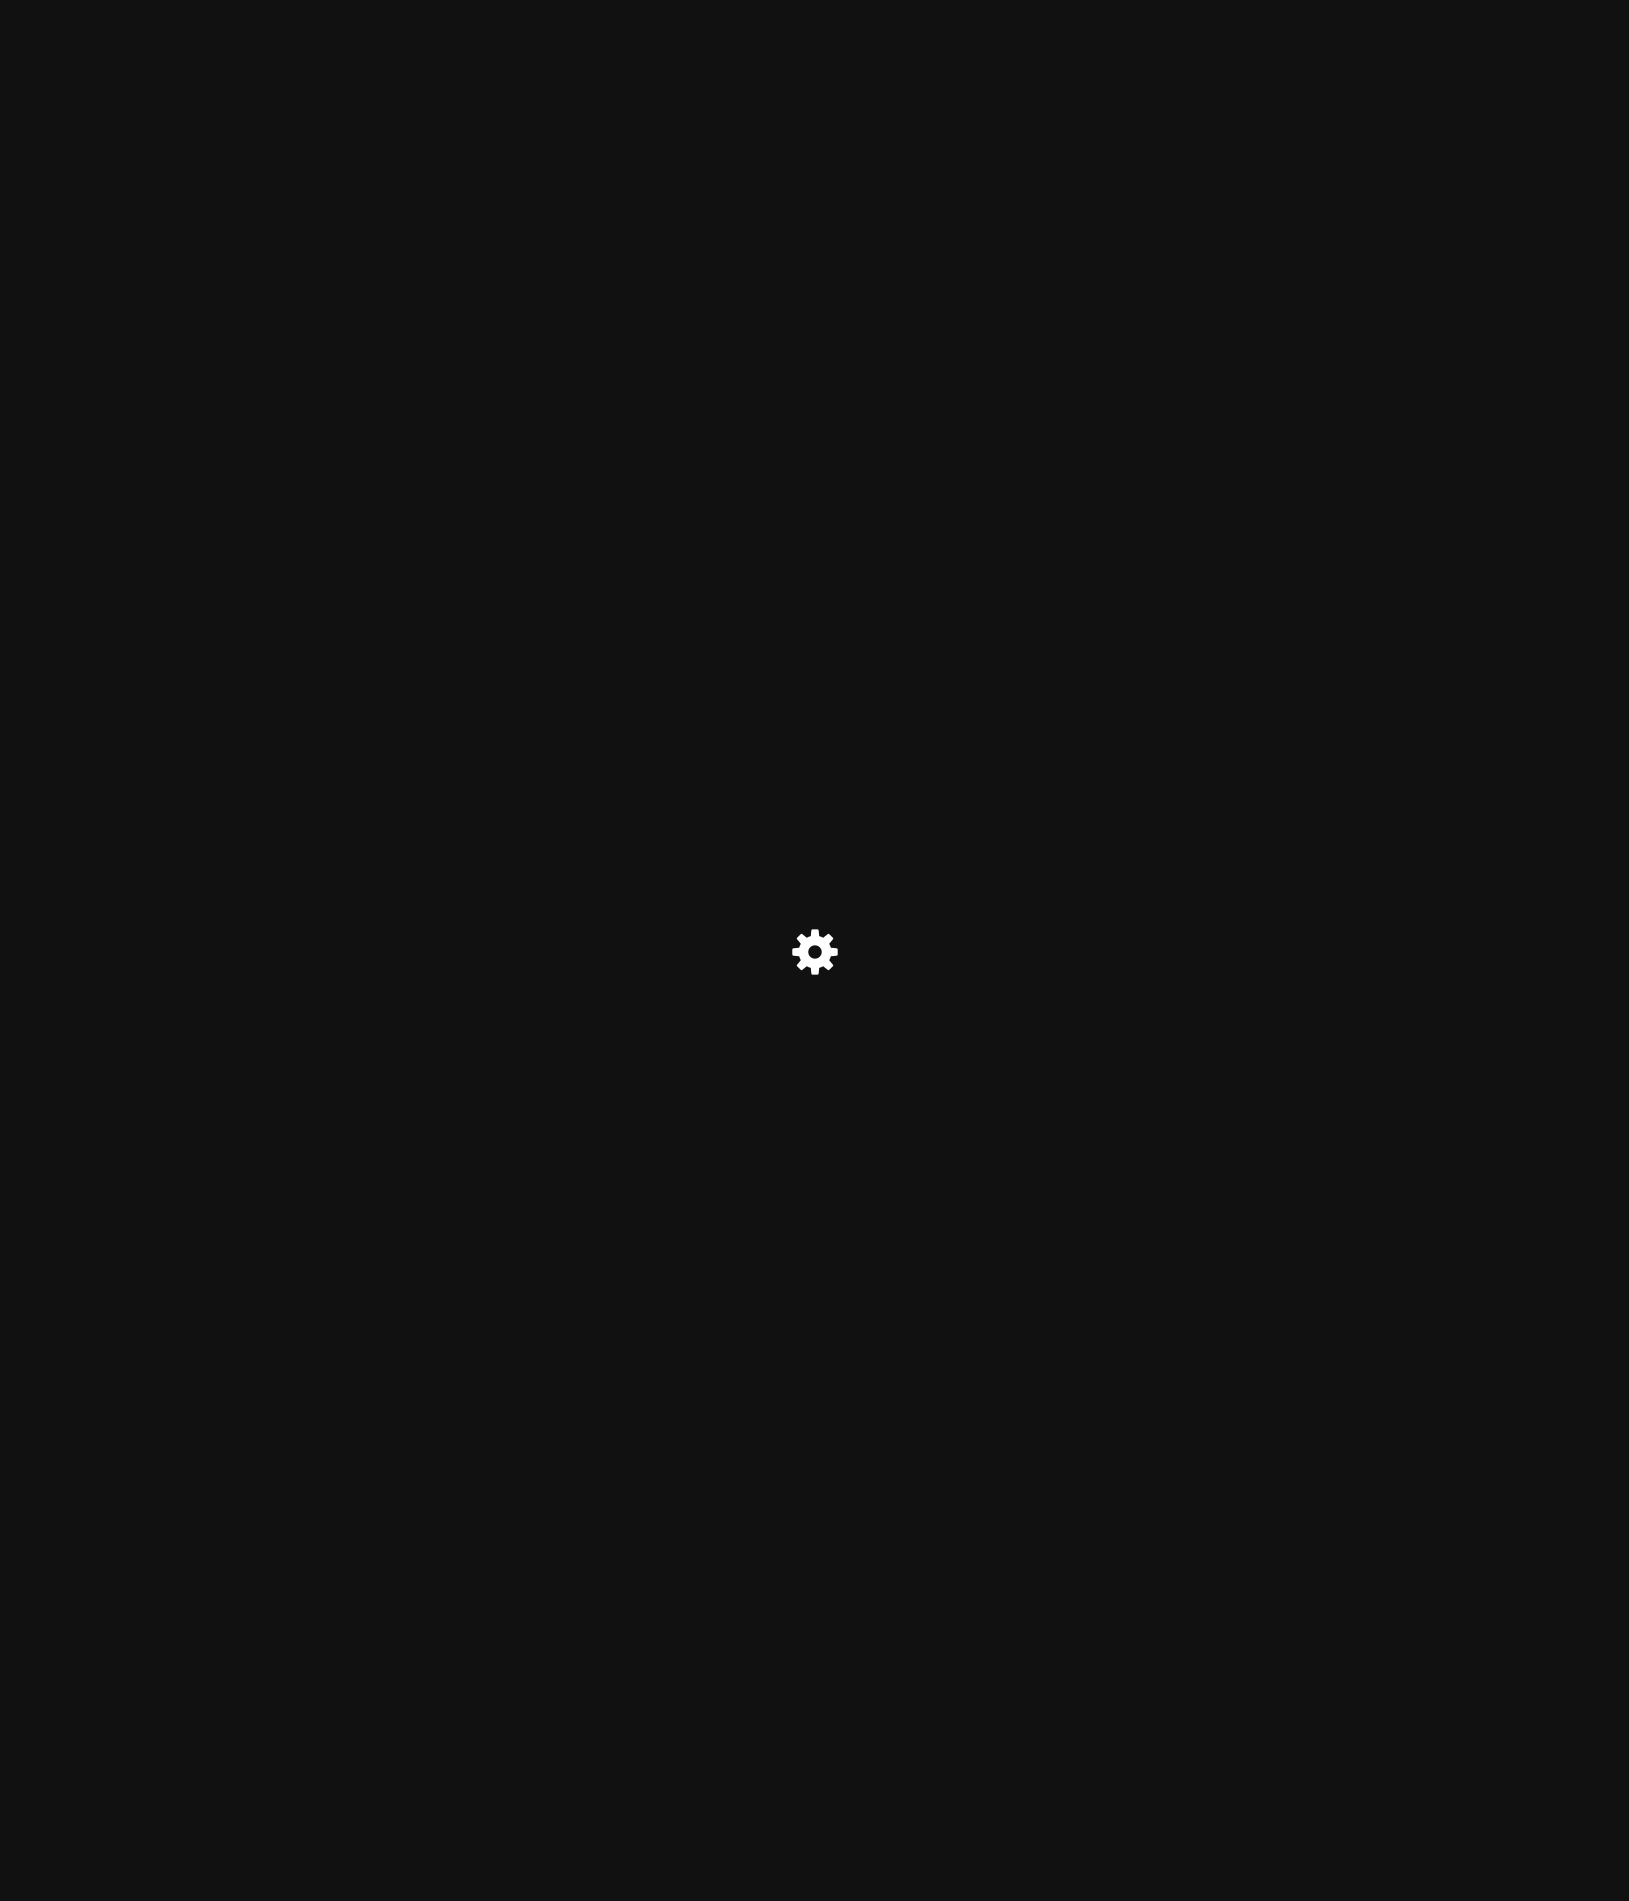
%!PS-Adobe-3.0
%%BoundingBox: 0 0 1629 1901
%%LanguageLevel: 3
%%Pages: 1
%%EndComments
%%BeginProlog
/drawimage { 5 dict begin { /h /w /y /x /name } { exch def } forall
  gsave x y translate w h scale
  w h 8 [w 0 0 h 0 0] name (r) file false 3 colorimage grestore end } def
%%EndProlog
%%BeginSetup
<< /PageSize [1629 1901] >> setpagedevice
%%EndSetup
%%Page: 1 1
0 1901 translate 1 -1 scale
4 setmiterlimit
0.067 setgray
0 0 1629 1901 rectfill
(images/1.raw) 792 929 46 46 drawimage
showpage
%%EOF
